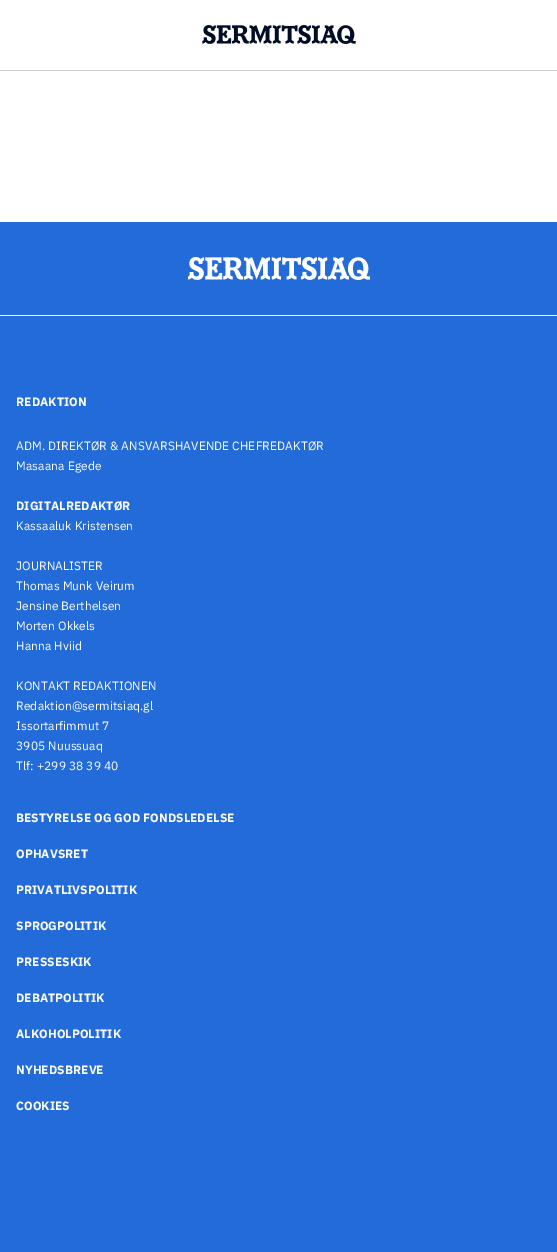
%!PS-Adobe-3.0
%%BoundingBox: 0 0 557 1252
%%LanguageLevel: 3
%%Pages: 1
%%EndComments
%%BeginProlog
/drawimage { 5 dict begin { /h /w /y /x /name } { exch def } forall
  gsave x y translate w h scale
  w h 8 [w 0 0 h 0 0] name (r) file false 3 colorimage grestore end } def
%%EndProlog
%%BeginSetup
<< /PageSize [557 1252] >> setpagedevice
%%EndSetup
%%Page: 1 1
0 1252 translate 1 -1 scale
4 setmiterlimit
1 setgray
0 0 557 1252 rectfill
0.808 setgray
0 70 557 1 rectfill
(images/1.raw) 202 25 154 19 drawimage
0.133 0.42 0.851 setrgbcolor
0 222 557 93 rectfill
(images/2.raw) 188 257 182 23 drawimage
0 316 557 936 rectfill
/IBMPlexSans-Bold [12 0 0 -12 0 0] selectfont
1 setgray
16 406 moveto 0.1 0 (REDAKTION) ashow
/IBMPlexSans-Regular [12 0 0 -12 0 0] selectfont
16 450 moveto 0.1 0 (ADM. DIREKTØR & ANSVARSHAVENDE CHEFREDAKTØR) ashow
16 470 moveto 0.1 0 (Masaana Egede) ashow
/IBMPlexSans-Bold [12 0 0 -12 0 0] selectfont
16 510 moveto 0.1 0 (DIGITALREDAKTØR) ashow
/IBMPlexSans-Regular [12 0 0 -12 0 0] selectfont
16 530 moveto 0.1 0 (Kassaaluk Kristensen) ashow
16 570 moveto 0.1 0 (JOURNALISTER) ashow
16 590 moveto 0.1 0 (Thomas Munk Veirum) ashow
16 610 moveto 0.1 0 (Jensine Berthelsen) ashow
16 630 moveto 0.1 0 (Morten Okkels) ashow
16 650 moveto 0.1 0 (Hanna Hviid) ashow
16 690 moveto 0.1 0 (KONTAKT REDAKTIONEN) ashow
16 710 moveto 0.1 0 (Redaktion@sermitsiaq.gl) ashow
16 730 moveto 0.1 0 (Issortarfimmut 7) ashow
16 750 moveto 0.1 0 (3905 Nuussuaq) ashow
16 770 moveto 0.1 0 (Tlf: +299 38 39 40) ashow
/IBMPlexSans-Bold [12 0 0 -12 0 0] selectfont
16 822 moveto 0.1 0 (BESTYRELSE OG GOD FONDSLEDELSE) ashow
16 858 moveto 0.1 0 (OPHAVSRET) ashow
16 894 moveto 0.1 0 (PRIVATLIVSPOLITIK) ashow
16 930 moveto 0.1 0 (SPROGPOLITIK) ashow
16 966 moveto 0.1 0 (PRESSESKIK) ashow
16 1002 moveto 0.1 0 (DEBATPOLITIK) ashow
16 1038 moveto 0.1 0 (ALKOHOLPOLITIK) ashow
16 1074 moveto 0.1 0 (NYHEDSBREVE) ashow
16 1110 moveto 0.1 0 (COOKIES) ashow
showpage
%%EOF
